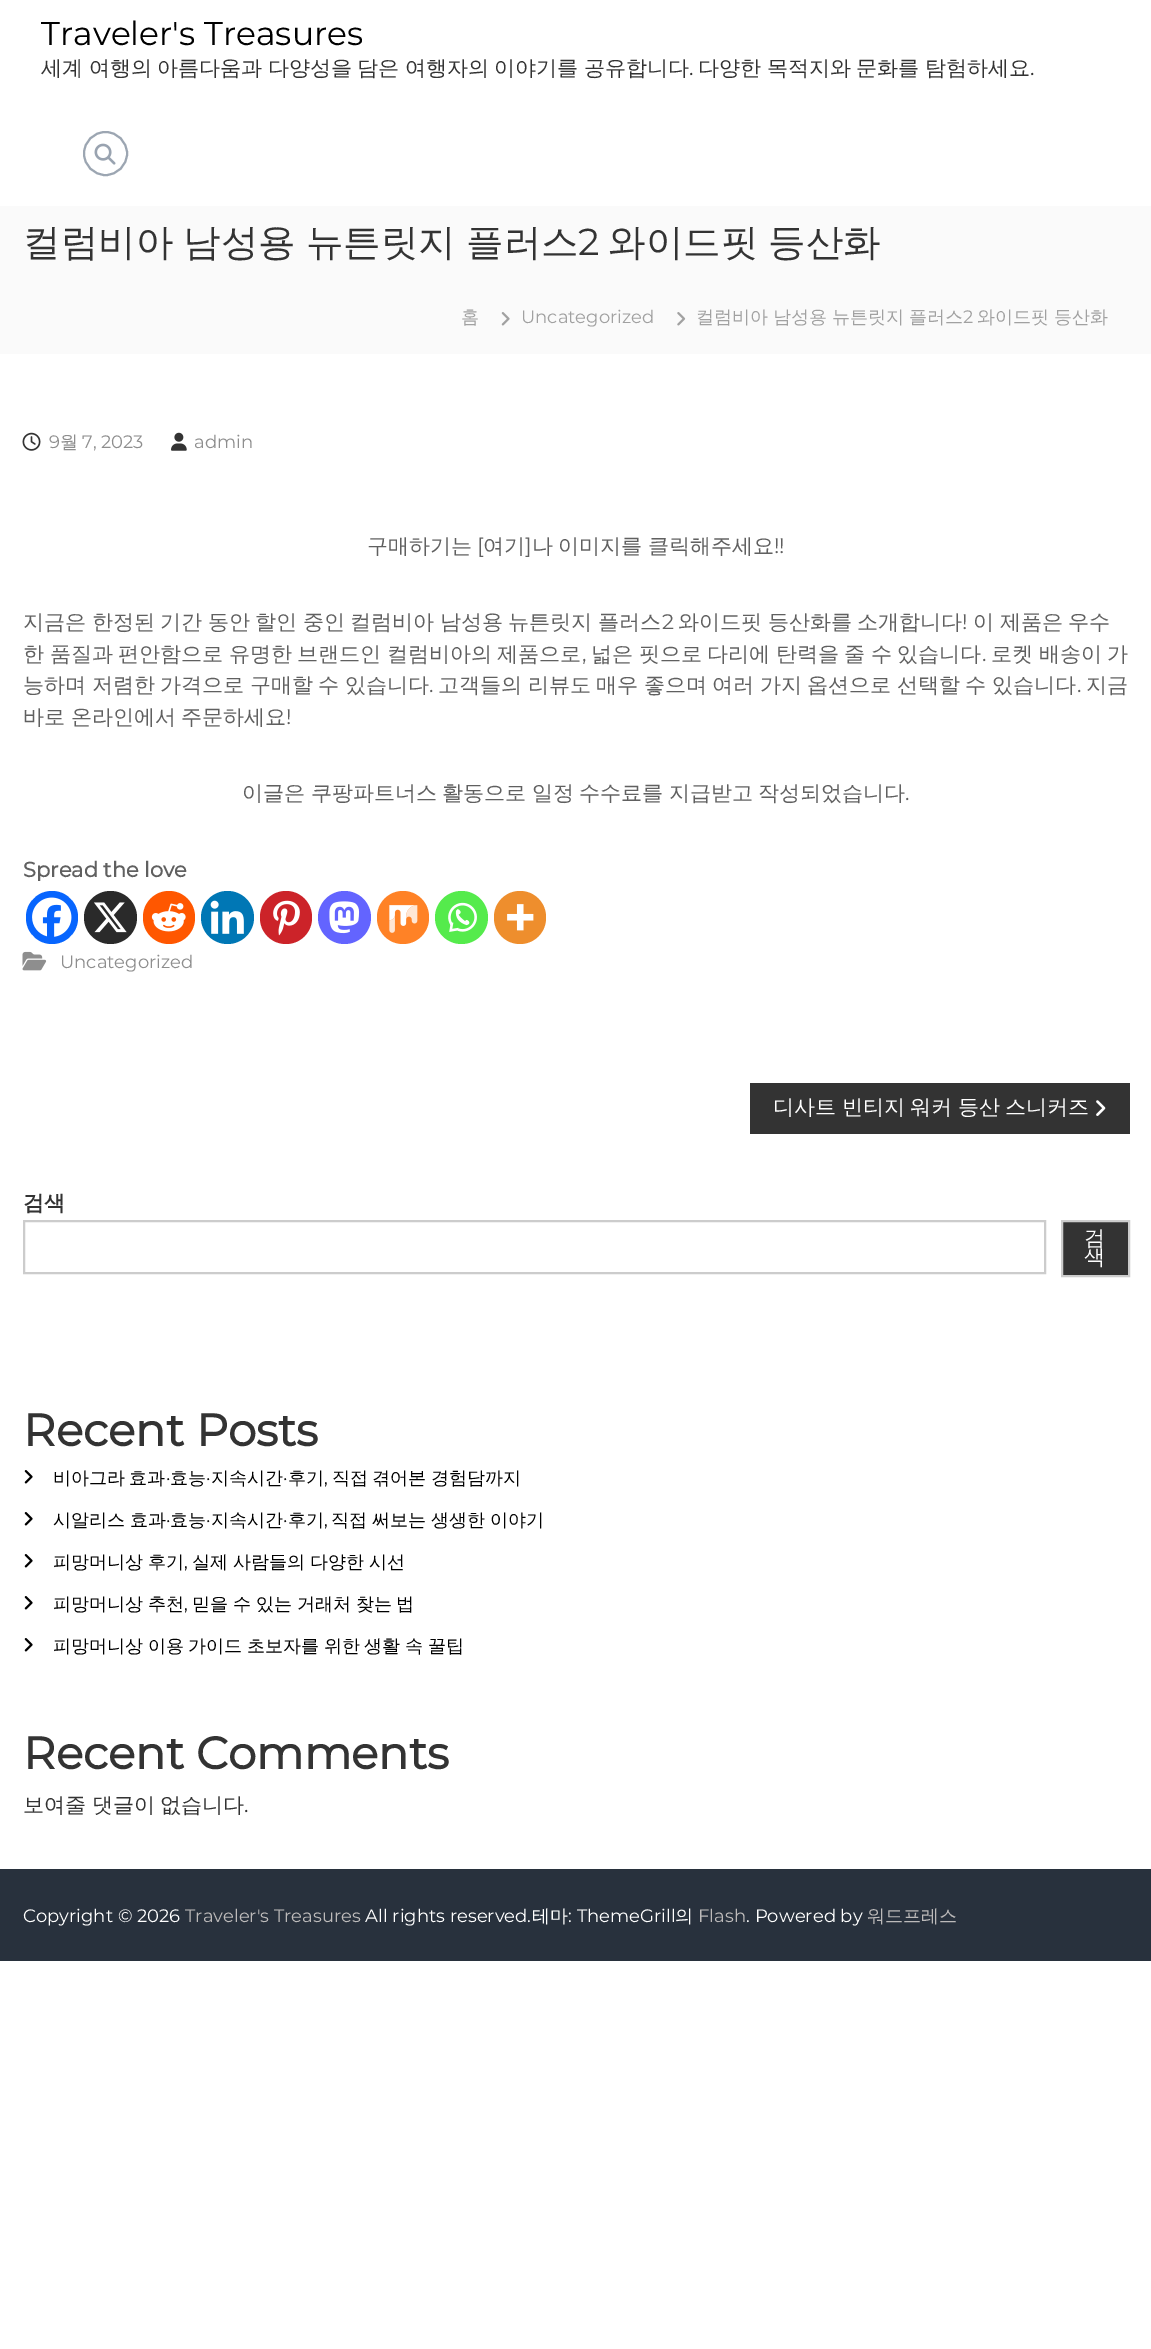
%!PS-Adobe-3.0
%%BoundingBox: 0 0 1151 2349
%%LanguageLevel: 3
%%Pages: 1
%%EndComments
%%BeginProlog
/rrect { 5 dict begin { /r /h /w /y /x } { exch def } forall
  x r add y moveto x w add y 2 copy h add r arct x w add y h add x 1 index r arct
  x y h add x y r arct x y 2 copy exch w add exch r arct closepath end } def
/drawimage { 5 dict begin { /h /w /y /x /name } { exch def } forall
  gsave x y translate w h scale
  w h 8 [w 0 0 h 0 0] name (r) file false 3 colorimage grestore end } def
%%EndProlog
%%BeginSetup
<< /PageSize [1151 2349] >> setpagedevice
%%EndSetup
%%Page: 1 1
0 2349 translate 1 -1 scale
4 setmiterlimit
1 setgray
0 0 1151 2349 rectfill
0.612 0.651 0.698 setrgbcolor
2 setlinewidth
newpath 105.5 153.5 21.5 0 360 arc closepath stroke
(images/1.raw) 94 143 22 22 drawimage
0.98 setgray
0 206 1151 148 rectfill
(images/2.raw) 501 312 9 14 drawimage
(images/3.raw) 677 312 9 14 drawimage
(images/4.raw) 22 432 19 19 drawimage
(images/5.raw) 171 432 16 19 drawimage
0.027 0.396 0.996 setrgbcolor
26 891 52 53 26 rrect fill
(images/6.raw) 32 897 40 40 drawimage
0.165 setgray
newpath 110.5 917.5 26.5 0 360 arc closepath fill
(images/7.raw) 94 902 33 31 drawimage
1 0.341 0 setrgbcolor
143 891 52 53 26 rrect fill
(images/8.raw) 151 903 35 29 drawimage
0 0.467 0.71 setrgbcolor
newpath 227.5 917.5 26.5 0 360 arc closepath fill
(images/9.raw) 210 900 34 34 drawimage
0.8 0.137 0.161 setrgbcolor
260 891 52 53 26 rrect fill
(images/10.raw) 273 900 27 36 drawimage
0.388 0.392 1 setrgbcolor
newpath 344.5 917.5 26.5 0 360 arc closepath fill
(images/11.raw) 329 901 31 33 drawimage
1 0.51 0.149 setrgbcolor
377 891 52 53 26 rrect fill
(images/12.raw) 389 905 29 28 drawimage
0.333 0.922 0.298 setrgbcolor
newpath 461.5 917.5 26.5 0 360 arc closepath fill
(images/13.raw) 448 902 29 30 drawimage
0.933 0.557 0.176 setrgbcolor
494 891 52 53 26 rrect fill
(images/14.raw) 507 904 27 27 drawimage
(images/15.raw) 22 951 25 20 drawimage
0.2 setgray
750 1083 380 51 rectfill
(images/16.raw) 1096 1100 10 16 drawimage
0.8 setgray
24 1221 1021 52 rectstroke
0.2 setgray
newpath 1062 1221 moveto 1129 1221 lineto 1129 1276 lineto 1062 1276 lineto closepath gsave fill grestore
0.8 setgray
stroke
(images/17.raw) 24 1470 9 14 drawimage
(images/17.raw) 24 1512 9 14 drawimage
(images/17.raw) 24 1554 9 14 drawimage
(images/17.raw) 24 1596 9 14 drawimage
(images/17.raw) 24 1638 9 14 drawimage
0.157 0.192 0.239 setrgbcolor
0 1869 1151 92 rectfill
/Montserrat-Regular [33 0 0 -33 0 0] selectfont
0 setgray
41 45 moveto (Traveler's Treasures) show
/WenQuanYiZenHei-Medium [21 0 0 -21 0 0] selectfont
0.2 setgray
41 75 moveto -0.75 0 32 (세계 여행의 아름다움과 다양성을 담은 여행자의 이야기를 공유합니다) widthshow
/Montserrat-Regular [21 0 0 -21 0 0] selectfont
689 75 moveto (.) show
/WenQuanYiZenHei-Medium [21 0 0 -21 0 0] selectfont
698 75 moveto -0.75 0 32 (다양한 목적지와 문화를 탐험하세요) widthshow
/Montserrat-Regular [21 0 0 -21 0 0] selectfont
1030 75 moveto (.) show
/WenQuanYiZenHei-Medium [37.5 0 0 -37.5 0 0] selectfont
23 255 moveto -1 0 32 (컬럼비아 남성용 뉴튼릿지 플러스) widthshow
/Montserrat-Regular [37.5 0 0 -37.5 0 0] selectfont
578 255 moveto (2) show
/WenQuanYiZenHei-Medium [37.5 0 0 -37.5 0 0] selectfont
608 255 moveto -1 0 32 (와이드핏 등산화) widthshow
/WenQuanYiZenHei-Medium [18 0 0 -18 0 0] selectfont
0.631 setgray
461 323 moveto (홈) show
/Montserrat-Regular [18 0 0 -18 0 0] selectfont
521 323 moveto (Uncategorized) show
/WenQuanYiZenHei-Medium [18 0 0 -18 0 0] selectfont
696 323 moveto -0.5 0 32 (컬럼비아 남성용 뉴튼릿지 플러스) widthshow
/Montserrat-Regular [18 0 0 -18 0 0] selectfont
963 323 moveto (2) show
/WenQuanYiZenHei-Medium [18 0 0 -18 0 0] selectfont
977 323 moveto -0.5 0 32 (와이드핏 등산화) widthshow
/Montserrat-Regular [18 0 0 -18 0 0] selectfont
0.557 setgray
49 448 moveto (9) show
/WenQuanYiZenHei-Medium [18 0 0 -18 0 0] selectfont
60 448 moveto (월) show
/Montserrat-Regular [18 0 0 -18 0 0] selectfont
82 448 moveto (7, 2023) show
194 448 moveto (admin) show
/WenQuanYiZenHei-Medium [21 0 0 -21 0 0] selectfont
0.376 setgray
367 553 moveto (구매하기는) show
/Montserrat-Regular [21 0 0 -21 0 0] selectfont
477 553 moveto ([) show
/WenQuanYiZenHei-Medium [21 0 0 -21 0 0] selectfont
483 553 moveto (여기) show
/Montserrat-Regular [21 0 0 -21 0 0] selectfont
525 553 moveto (]) show
/WenQuanYiZenHei-Medium [21 0 0 -21 0 0] selectfont
532 553 moveto -1 0 32 (나 이미지를 클릭해주세요) widthshow
/Montserrat-Regular [21 0 0 -21 0 0] selectfont
774 553 moveto (!!) show
/WenQuanYiZenHei-Medium [21 0 0 -21 0 0] selectfont
23 629 moveto -0.75 0 32 (지금은 한정된 기간 동안 할인 중인 컬럼비아 남성용 뉴튼릿지 플러스) widthshow
/Montserrat-Regular [21 0 0 -21 0 0] selectfont
662 629 moveto (2) show
/WenQuanYiZenHei-Medium [21 0 0 -21 0 0] selectfont
678 629 moveto -0.75 0 32 (와이드핏 등산화를 소개합니다) widthshow
/Montserrat-Regular [21 0 0 -21 0 0] selectfont
962 629 moveto (!) show
/WenQuanYiZenHei-Medium [21 0 0 -21 0 0] selectfont
973 629 moveto -0.75 0 32 (이 제품은 우수) widthshow
23 661 moveto -0.75 0 32 (한 품질과 편안함으로 유명한 브랜드인 컬럼비아의 제품으로) widthshow
/Montserrat-Regular [21 0 0 -21 0 0] selectfont
582 661 moveto (,) show
/WenQuanYiZenHei-Medium [21 0 0 -21 0 0] selectfont
591 661 moveto -0.75 0 32 (넓은 핏으로 다리에 탄력을 줄 수 있습니다) widthshow
/Montserrat-Regular [21 0 0 -21 0 0] selectfont
982 661 moveto (.) show
/WenQuanYiZenHei-Medium [21 0 0 -21 0 0] selectfont
991 661 moveto -0.75 0 32 (로켓 배송이 가) widthshow
23 692 moveto -0.75 0 32 (능하며 저렴한 가격으로 구매할 수 있습니다) widthshow
/Montserrat-Regular [21 0 0 -21 0 0] selectfont
429 692 moveto (.) show
/WenQuanYiZenHei-Medium [21 0 0 -21 0 0] selectfont
438 692 moveto -0.75 0 32 (고객들의 리뷰도 매우 좋으며 여러 가지 옵션으로 선택할 수 있습니다) widthshow
/Montserrat-Regular [21 0 0 -21 0 0] selectfont
1077 692 moveto (.) show
/WenQuanYiZenHei-Medium [21 0 0 -21 0 0] selectfont
1086 692 moveto (지금) show
23 724 moveto -0.75 0 32 (바로 온라인에서 주문하세요) widthshow
/Montserrat-Regular [21 0 0 -21 0 0] selectfont
286 724 moveto (!) show
/WenQuanYiZenHei-Medium [21 0 0 -21 0 0] selectfont
242 800 moveto -0.75 0 32 (이글은 쿠팡파트너스 활동으로 일정 수수료를 지급받고 작성되었습니다) widthshow
/Montserrat-Regular [21 0 0 -21 0 0] selectfont
905 800 moveto (.) show
/Montserrat-Bold [21 0 0 -21 0 0] selectfont
23 877 moveto (Spread the love) show
/Montserrat-Regular [18 0 0 -18 0 0] selectfont
0.557 setgray
60 968 moveto (Uncategorized) show
/WenQuanYiZenHei-Medium [21 0 0 -21 0 0] selectfont
1 setgray
773 1114 moveto -0.75 0 32 (디사트 빈티지 워커 등산 스니커즈) widthshow
/WenQuanYiZenHei-Bold [21 0 0 -21 0 0] selectfont
0.2 setgray
23 1210 moveto (검색) show
/WenQuanYiZenHei-Medium [21 0 0 -21 0 0] selectfont
1 setgray
1084 1245 moveto (검) show
1084 1264 moveto (색) show
/Montserrat-Bold [45 0 0 -45 0 0] selectfont
0.2 setgray
23 1446 moveto (Recent Posts) show
/WenQuanYiZenHei-Medium [18 0 0 -18 0 0] selectfont
0 setgray
53 1484 moveto -1 0 32 (비아그라 효과) widthshow
/Montserrat-Regular [18 0 0 -18 0 0] selectfont
166 1484 moveto (·) show
/WenQuanYiZenHei-Medium [18 0 0 -18 0 0] selectfont
170 1484 moveto (효능) show
/Montserrat-Regular [18 0 0 -18 0 0] selectfont
206 1484 moveto (·) show
/WenQuanYiZenHei-Medium [18 0 0 -18 0 0] selectfont
211 1484 moveto (지속시간) show
/Montserrat-Regular [18 0 0 -18 0 0] selectfont
283 1484 moveto (·) show
/WenQuanYiZenHei-Medium [18 0 0 -18 0 0] selectfont
288 1484 moveto (후기) show
332 1484 moveto -1 0 32 (직접 겪어본 경험담까지) widthshow
/Montserrat-Regular [18 0 0 -18 0 0] selectfont
324 1484 moveto (,) show
/WenQuanYiZenHei-Medium [18 0 0 -18 0 0] selectfont
53 1526 moveto -0.5 0 32 (시알리스 효과) widthshow
/Montserrat-Regular [18 0 0 -18 0 0] selectfont
166 1526 moveto (·) show
/WenQuanYiZenHei-Medium [18 0 0 -18 0 0] selectfont
170 1526 moveto (효능) show
/Montserrat-Regular [18 0 0 -18 0 0] selectfont
206 1526 moveto (·) show
/WenQuanYiZenHei-Medium [18 0 0 -18 0 0] selectfont
211 1526 moveto (지속시간) show
/Montserrat-Regular [18 0 0 -18 0 0] selectfont
283 1526 moveto (·) show
/WenQuanYiZenHei-Medium [18 0 0 -18 0 0] selectfont
288 1526 moveto (후기) show
331 1526 moveto -0.5 0 32 (직접 써보는 생생한 이야기) widthshow
/Montserrat-Regular [18 0 0 -18 0 0] selectfont
324 1526 moveto (,) show
/WenQuanYiZenHei-Medium [18 0 0 -18 0 0] selectfont
53 1568 moveto -0.5 0 32 (피망머니상 후기) widthshow
/Montserrat-Regular [18 0 0 -18 0 0] selectfont
184 1568 moveto (,) show
/WenQuanYiZenHei-Medium [18 0 0 -18 0 0] selectfont
192 1568 moveto -0.5 0 32 (실제 사람들의 다양한 시선) widthshow
53 1610 moveto -0.5 0 32 (피망머니상 추천) widthshow
/Montserrat-Regular [18 0 0 -18 0 0] selectfont
184 1610 moveto (,) show
/WenQuanYiZenHei-Medium [18 0 0 -18 0 0] selectfont
192 1610 moveto -0.5 0 32 (믿을 수 있는 거래처 찾는 법) widthshow
53 1652 moveto -0.75 0 32 (피망머니상 이용 가이드 초보자를 위한 생활 속 꿀팁) widthshow
/Montserrat-Bold [45 0 0 -45 0 0] selectfont
0.2 setgray
23 1769 moveto (Recent Comments) show
/WenQuanYiZenHei-Medium [21 0 0 -21 0 0] selectfont
23 1812 moveto -0.75 0 32 (보여줄 댓글이 없습니다) widthshow
/Montserrat-Regular [21 0 0 -21 0 0] selectfont
244 1812 moveto (.) show
/Montserrat-Regular [18 0 0 -18 0 0] selectfont
1 setgray
23 1922 moveto (Copyright © 2026) show
0.737 0.729 0.729 setrgbcolor
185 1922 moveto (Traveler's Treasures) show
1 setgray
365 1922 moveto (All rights reserved.) show
/WenQuanYiZenHei-Medium [18 0 0 -18 0 0] selectfont
532 1922 moveto (테마) show
/Montserrat-Regular [18 0 0 -18 0 0] selectfont
568 1922 moveto (: ThemeGrill) show
/WenQuanYiZenHei-Medium [18 0 0 -18 0 0] selectfont
675 1922 moveto (의) show
/Montserrat-Regular [18 0 0 -18 0 0] selectfont
0.737 0.729 0.729 setrgbcolor
698 1922 moveto (Flash) show
1 setgray
746 1922 moveto (. Powered by) show
/WenQuanYiZenHei-Medium [18 0 0 -18 0 0] selectfont
0.737 0.729 0.729 setrgbcolor
867 1922 moveto (워드프레스) show
showpage
%%EOF
